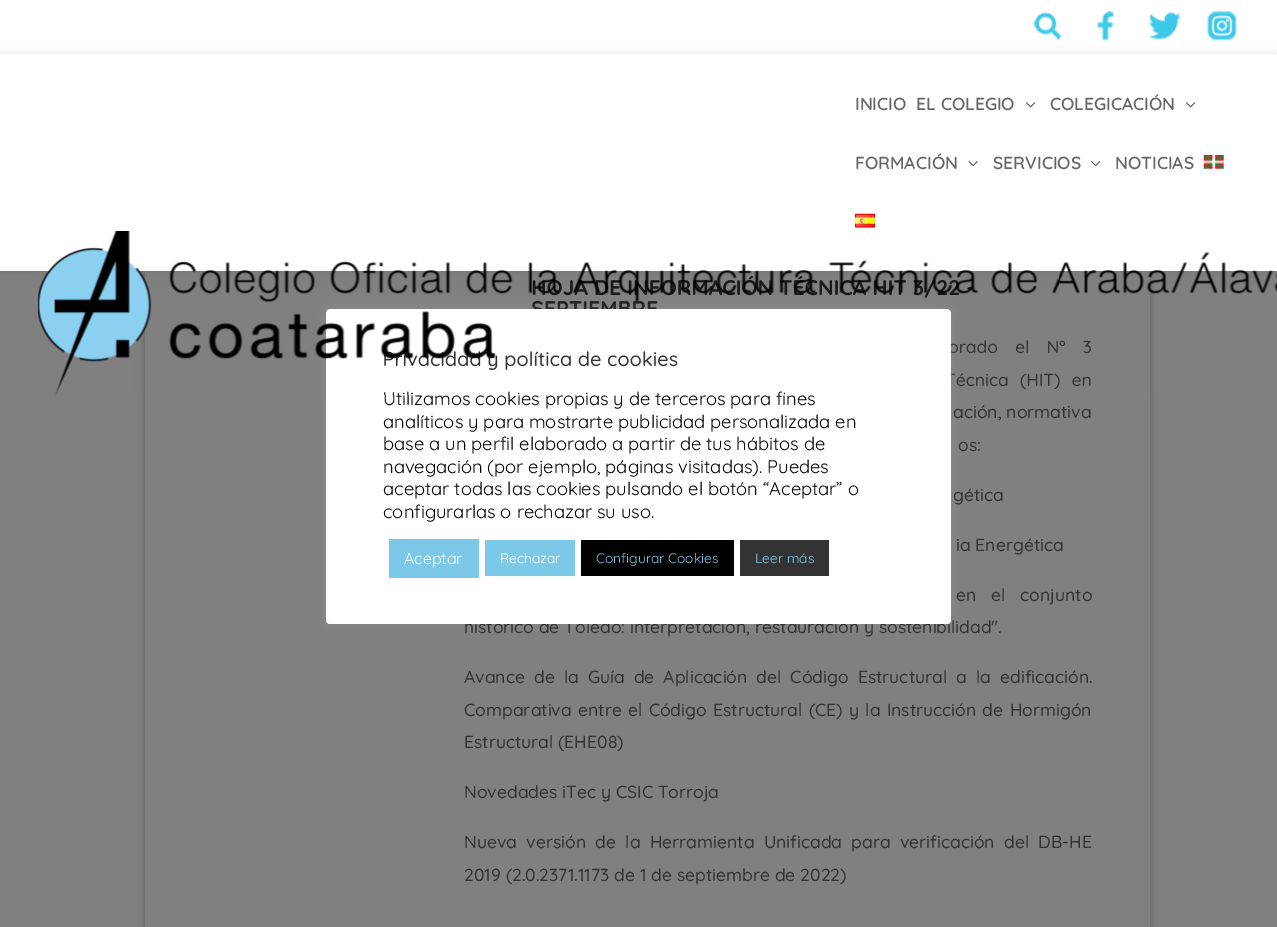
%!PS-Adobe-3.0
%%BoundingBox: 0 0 1277 927
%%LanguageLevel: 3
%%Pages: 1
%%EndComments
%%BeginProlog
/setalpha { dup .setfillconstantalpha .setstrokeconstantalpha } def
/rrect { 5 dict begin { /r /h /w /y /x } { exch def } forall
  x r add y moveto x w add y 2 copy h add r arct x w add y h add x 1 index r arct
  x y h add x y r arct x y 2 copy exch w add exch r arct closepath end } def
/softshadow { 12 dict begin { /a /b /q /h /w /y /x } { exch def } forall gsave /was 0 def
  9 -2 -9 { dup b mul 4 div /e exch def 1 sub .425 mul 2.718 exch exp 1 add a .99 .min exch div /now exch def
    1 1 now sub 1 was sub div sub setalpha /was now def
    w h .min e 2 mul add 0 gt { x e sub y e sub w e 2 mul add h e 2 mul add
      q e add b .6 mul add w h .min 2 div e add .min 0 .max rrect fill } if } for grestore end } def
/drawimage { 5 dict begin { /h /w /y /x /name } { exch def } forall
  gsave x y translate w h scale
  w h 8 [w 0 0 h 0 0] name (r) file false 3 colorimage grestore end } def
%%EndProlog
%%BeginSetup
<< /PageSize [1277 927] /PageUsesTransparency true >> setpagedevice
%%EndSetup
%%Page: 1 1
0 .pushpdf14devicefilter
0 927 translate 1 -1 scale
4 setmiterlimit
0.502 setgray
0 0 1277 927 rectfill
1 setgray
0 0 1277 54 rectfill
(images/1.raw) 1033 12 29 29 drawimage
(images/2.raw) 1097 11 17 30 drawimage
(images/3.raw) 1148 12 34 29 drawimage
(images/4.raw) 1207 11 30 30 drawimage
0.396 setgray
144 250 1007 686 0 3 1 softshadow
0.502 setgray
145 271 1005 656 rectfill
0 setgray
0 54 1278 217 0 4.5 0.1 softshadow
1 setgray
0 54 1277 217 rectfill
(images/5.raw) 1026 102 10 6 drawimage
(images/5.raw) 1186 102 10 6 drawimage
(images/6.raw) 968 161 10 6 drawimage
(images/7.raw) 1091 161 10 6 drawimage
(images/8.raw) 1203 155 21 14 drawimage
(images/9.raw) 855 213 20 15 drawimage
0.675 0.671 0.671 setrgbcolor
326 308 625 315 4 6 0.3 softshadow
/Quicksand-SemiBold [17.5 0 0 -17.5 0 0] selectfont
0.4 setgray
855 110 moveto (INICIO) show
916 110 moveto (EL COLEGIO) show
1050 110 moveto (COLEGICACIÓN) show
855 169 moveto (FORMACIÓN) show
993 169 moveto (SERVICIOS) show
1115 169 moveto (NOTICIAS) show
/Quicksand-Bold [21.25 0 0 -21.25 0 0] selectfont
0.102 setgray
531 295 moveto (HOJA DE INFORMACIÓN TÉCNICA HIT 3/22 -) show
/Quicksand-Medium [17.5 0 0 -17.5 0 0] selectfont
0.2 setgray
948 353 moveto 12 0 32 (orado el Nº 3) widthshow
956 386 moveto 6 0 32 (écnica \(HIT\) en) widthshow
953 418 moveto (ación, normativa) show
958 451 moveto (os:) show
953 501 moveto (gética) show
956 551 moveto (ia Energética) show
956 601 moveto 10 0 32 (en el conjunto) widthshow
464 633 moveto (histórico de Toledo: interpretación, restauración y sostenibilidad".) show
464 683 moveto 4.25 0 32 (Avance de la Guía de Aplicación del Código Estructural a la edificación.) widthshow
464 716 moveto 1.5 0 32 (Comparativa entre el Código Estructural \(CE\) y la Instrucción de Hormigón) widthshow
464 748 moveto (Estructural \(EHE08\)) show
464 798 moveto (Novedades iTec y CSIC Torroja) show
464 848 moveto 4.5 0 32 (Nueva versión de la Herramienta Unificada para verificación del DB-HE) widthshow
464 881 moveto (2019 \(2.0.2371.1173 de 1 de septiembre de 2022\)) show
1 setgray
326 309 625 315 4 rrect fill
/Quicksand-Medium [20 0 0 -20 0 0] selectfont
0.2 setgray
383 366 moveto (Privacidad y política de cookies) show
/Quicksand-Regular [18.3 0 0 -18.3 0 0] selectfont
0 setgray
383 405 moveto (Utilizamos cookies propias y de terceros para fines) show
(images/10.raw) 38 231 1239 164 drawimage
383 428 moveto (analíticos y para mostrarte publicidad personalizada en) show
383 450 moveto (base a un perfil elaborado a partir de tus hábitos de) show
383 473 moveto (navegación \(por ejemplo, páginas visitadas\). Puedes) show
383 495 moveto (aceptar todas las cookies pulsando el botón “Aceptar” o) show
383 518 moveto (configurarlas o rechazar su uso.) show
0.482 0.784 0.914 setrgbcolor
389 539 90 39 rectfill
/Quicksand-Regular [16 0 0 -16 0 0] selectfont
1 setgray
404 564 moveto (Aceptar) show
0.482 0.784 0.914 setrgbcolor
485 540 90 36 rectfill
/Quicksand-Regular [13.75 0 0 -13.75 0 0] selectfont
1 setgray
500 563 moveto (Rechazar) show
0 setgray
581 540 153 36 rectfill
0.482 0.784 0.914 setrgbcolor
596 563 moveto (Configurar Cookies) show
0.2 setgray
740 540 89 36 rectfill
0.482 0.784 0.914 setrgbcolor
755 563 moveto (Leer más) show
.poppdf14devicefilter showpage
%%EOF
